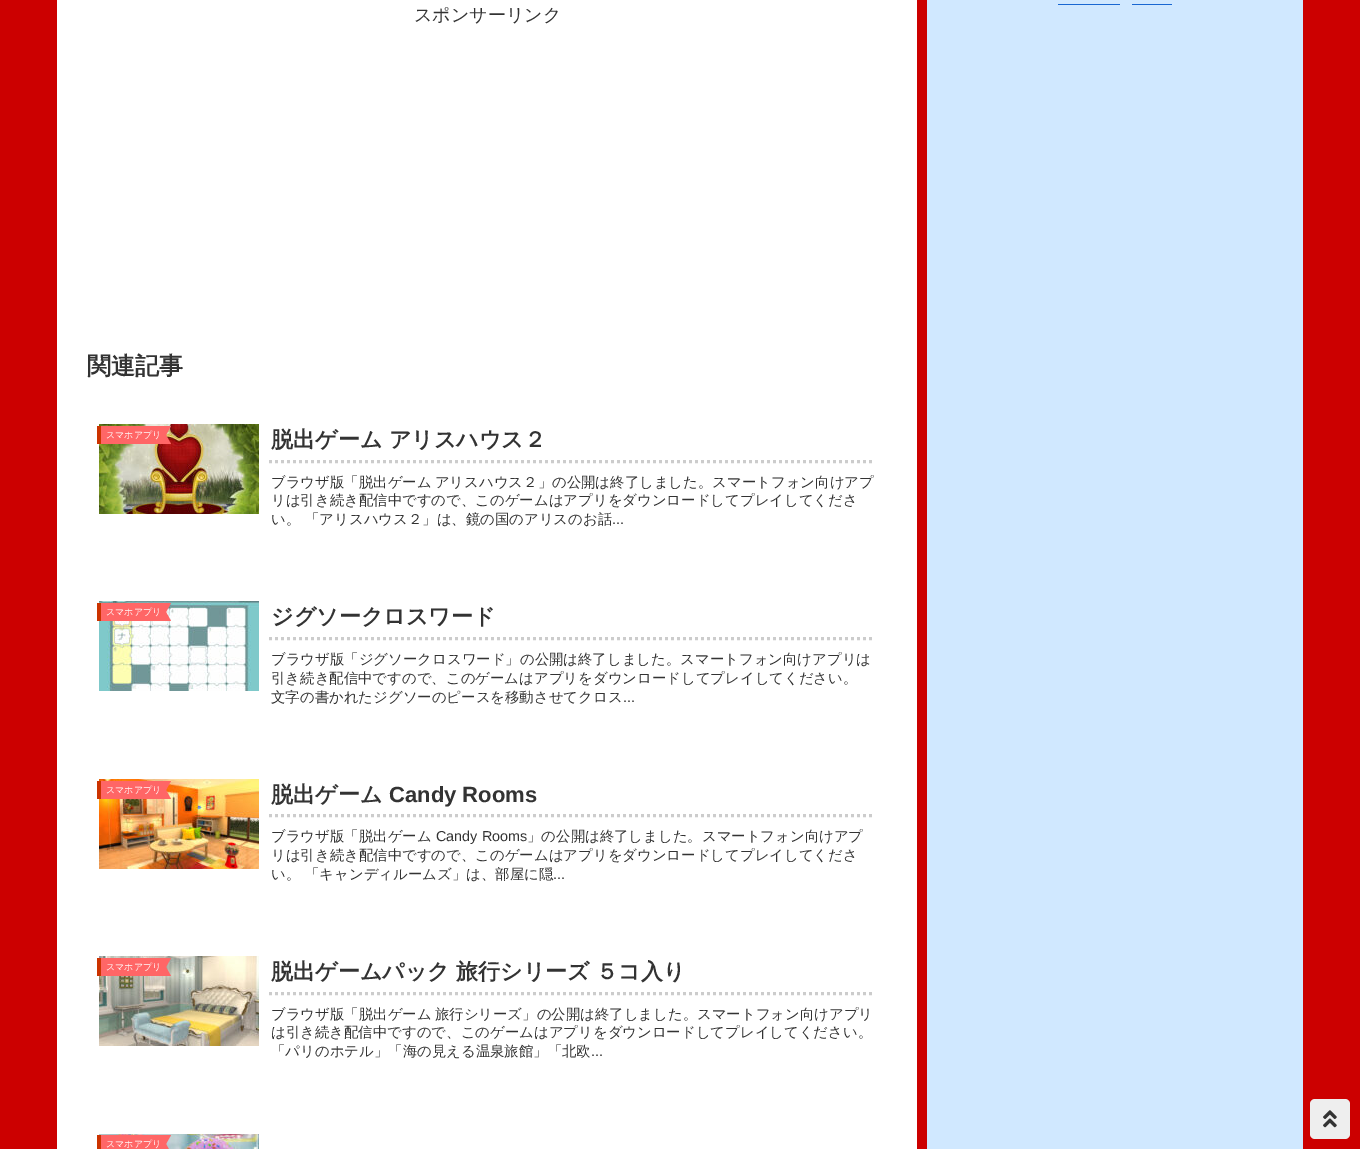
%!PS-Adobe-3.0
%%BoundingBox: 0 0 1360 1149
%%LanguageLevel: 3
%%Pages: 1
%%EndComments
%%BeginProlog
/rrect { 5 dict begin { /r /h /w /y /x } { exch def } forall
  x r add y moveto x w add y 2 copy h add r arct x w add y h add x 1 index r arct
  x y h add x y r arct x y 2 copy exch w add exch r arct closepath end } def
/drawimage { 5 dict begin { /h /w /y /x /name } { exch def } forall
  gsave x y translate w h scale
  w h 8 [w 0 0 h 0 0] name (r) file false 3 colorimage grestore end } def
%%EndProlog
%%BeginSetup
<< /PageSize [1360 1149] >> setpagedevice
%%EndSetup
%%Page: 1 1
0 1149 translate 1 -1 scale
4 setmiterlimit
0.8 0 0 setrgbcolor
0 0 1360 1149 rectfill
1 setgray
57 0 860 1149 rectfill
(images/1.raw) 99 424 160 90 drawimage
1 0.4 0.4 setrgbcolor
101 426 65 18 rectfill
0.8 0.2 0 setrgbcolor
97 426 4 18 rectfill
1 0.4 0.4 setrgbcolor
newpath 166 426 moveto 171 426 lineto 166 435 lineto closepath 171 444 moveto 166 444 lineto 166 435 lineto closepath fill
0.8 setgray
3 setlinewidth
[3 3] 0 setdash
newpath 269 461.5 moveto 875 461.5 lineto stroke
(images/2.raw) 99 601 160 90 drawimage
1 0.4 0.4 setrgbcolor
101 603 65 18 rectfill
0.8 0.2 0 setrgbcolor
97 603 4 18 rectfill
1 0.4 0.4 setrgbcolor
newpath 166 603 moveto 171 603 lineto 166 612 lineto closepath 171 621 moveto 166 621 lineto 166 612 lineto closepath fill
0.8 setgray
newpath 269 638.5 moveto 875 638.5 lineto stroke
(images/3.raw) 99 779 160 90 drawimage
1 0.4 0.4 setrgbcolor
101 781 65 18 rectfill
0.8 0.2 0 setrgbcolor
97 781 4 18 rectfill
1 0.4 0.4 setrgbcolor
newpath 166 781 moveto 171 781 lineto 166 790 lineto closepath 171 799 moveto 166 799 lineto 166 790 lineto closepath fill
0.8 setgray
newpath 269 815.5 moveto 875 815.5 lineto stroke
(images/4.raw) 99 956 160 90 drawimage
1 0.4 0.4 setrgbcolor
101 958 65 18 rectfill
0.8 0.2 0 setrgbcolor
97 958 4 18 rectfill
1 0.4 0.4 setrgbcolor
newpath 166 958 moveto 171 958 lineto 166 967 lineto closepath 171 976 moveto 166 976 lineto 166 967 lineto closepath fill
0.8 setgray
newpath 269 993.5 moveto 875 993.5 lineto stroke
(images/5.raw) 99 1134 160 15 drawimage
1 0.4 0.4 setrgbcolor
101 1135 65 14 rectfill
0.8 0.2 0 setrgbcolor
97 1135 4 14 rectfill
1 0.4 0.4 setrgbcolor
newpath 166 1135 moveto 171 1135 lineto 166 1144 lineto closepath 171 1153 moveto 166 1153 lineto 166 1144 lineto closepath fill
0.816 0.91 1 setrgbcolor
927 0 376 1149 rectfill
0.098 0.404 0.824 setrgbcolor
1058 4 62 1 rectfill
1132 4 40 1 rectfill
0.933 setgray
1310 1099 40 40 5 rrect fill
(images/6.raw) 1323 1110 14 18 drawimage
/WenQuanYiZenHei-Medium [18 0 0 -18 0 0] selectfont
0.2 setgray
414 21 moveto (スポンサーリンク) show
/WenQuanYiZenHei-Bold [24 0 0 -24 0 0] selectfont
87 374 moveto (関連記事) show
/WenQuanYiZenHei-Medium [9 0 0 -9 0 0] selectfont
1 setgray
106 438 moveto (スマホアプリ) show
/WenQuanYiZenHei-Bold [22 0 0 -22 0 0] selectfont
0.2 setgray
271 447 moveto (脱出ゲーム アリスハウス２) show
/WenQuanYiZenHei-Medium [14.4 0 0 -14.4 0 0] selectfont
271 487 moveto -1 0 32 (ブラウザ版「脱出ゲーム アリスハウス２」の公開は終了しました。スマートフォン向けアプ) widthshow
271 505 moveto (リは引き続き配信中ですので、このゲームはアプリをダウンロードしてプレイしてくださ) show
271 524 moveto (い。) show
305 524 moveto (「アリスハウス２」は、鏡の国のアリスのお話) show
/LiberationSans-Regular [14.4 0 0 -14.4 0 0] selectfont
612 524 moveto (...) show
/WenQuanYiZenHei-Medium [9 0 0 -9 0 0] selectfont
1 setgray
106 615 moveto (スマホアプリ) show
/WenQuanYiZenHei-Bold [22 0 0 -22 0 0] selectfont
0.2 setgray
271 624 moveto (ジグソークロスワード) show
/WenQuanYiZenHei-Medium [14.4 0 0 -14.4 0 0] selectfont
271 664 moveto (ブラウザ版「ジグソークロスワード」の公開は終了しました。スマートフォン向けアプリは) show
271 683 moveto (引き続き配信中ですので、このゲームはアプリをダウンロードしてプレイしてください。) show
271 702 moveto (文字の書かれたジグソーのピースを移動させてクロス) show
/LiberationSans-Regular [14.4 0 0 -14.4 0 0] selectfont
623 702 moveto (...) show
/WenQuanYiZenHei-Medium [9 0 0 -9 0 0] selectfont
1 setgray
106 793 moveto (スマホアプリ) show
/WenQuanYiZenHei-Bold [22 0 0 -22 0 0] selectfont
0.2 setgray
271 802 moveto (脱出ゲーム) show
/LiberationSans-Bold [22 0 0 -22 0 0] selectfont
389 802 moveto (Candy Rooms) show
/WenQuanYiZenHei-Medium [14.4 0 0 -14.4 0 0] selectfont
271 841 moveto (ブラウザ版「脱出ゲーム) show
/LiberationSans-Regular [14.4 0 0 -14.4 0 0] selectfont
436 841 moveto (Candy Rooms) show
/WenQuanYiZenHei-Medium [14.4 0 0 -14.4 0 0] selectfont
527 841 moveto (」の公開は終了しました。スマートフォン向けアプ) show
271 860 moveto (リは引き続き配信中ですので、このゲームはアプリをダウンロードしてプレイしてくださ) show
271 879 moveto (い。) show
305 879 moveto (「キャンディルームズ」は、部屋に隠) show
/LiberationSans-Regular [14.4 0 0 -14.4 0 0] selectfont
553 879 moveto (...) show
/WenQuanYiZenHei-Medium [9 0 0 -9 0 0] selectfont
1 setgray
106 970 moveto (スマホアプリ) show
/WenQuanYiZenHei-Bold [22 0 0 -22 0 0] selectfont
0.2 setgray
271 979 moveto (脱出ゲームパック 旅行シリーズ ５コ入り) show
/WenQuanYiZenHei-Medium [14.4 0 0 -14.4 0 0] selectfont
271 1019 moveto -1 0 32 (ブラウザ版「脱出ゲーム 旅行シリーズ」の公開は終了しました。スマートフォン向けアプリ) widthshow
271 1037 moveto (は引き続き配信中ですので、このゲームはアプリをダウンロードしてプレイしてください。) show
271 1056 moveto (「パリのホテル」「海の見える温泉旅館」「北欧) show
/LiberationSans-Regular [14.4 0 0 -14.4 0 0] selectfont
591 1056 moveto (...) show
/WenQuanYiZenHei-Medium [9 0 0 -9 0 0] selectfont
1 setgray
106 1147 moveto (スマホアプリ) show
showpage
%%EOF
